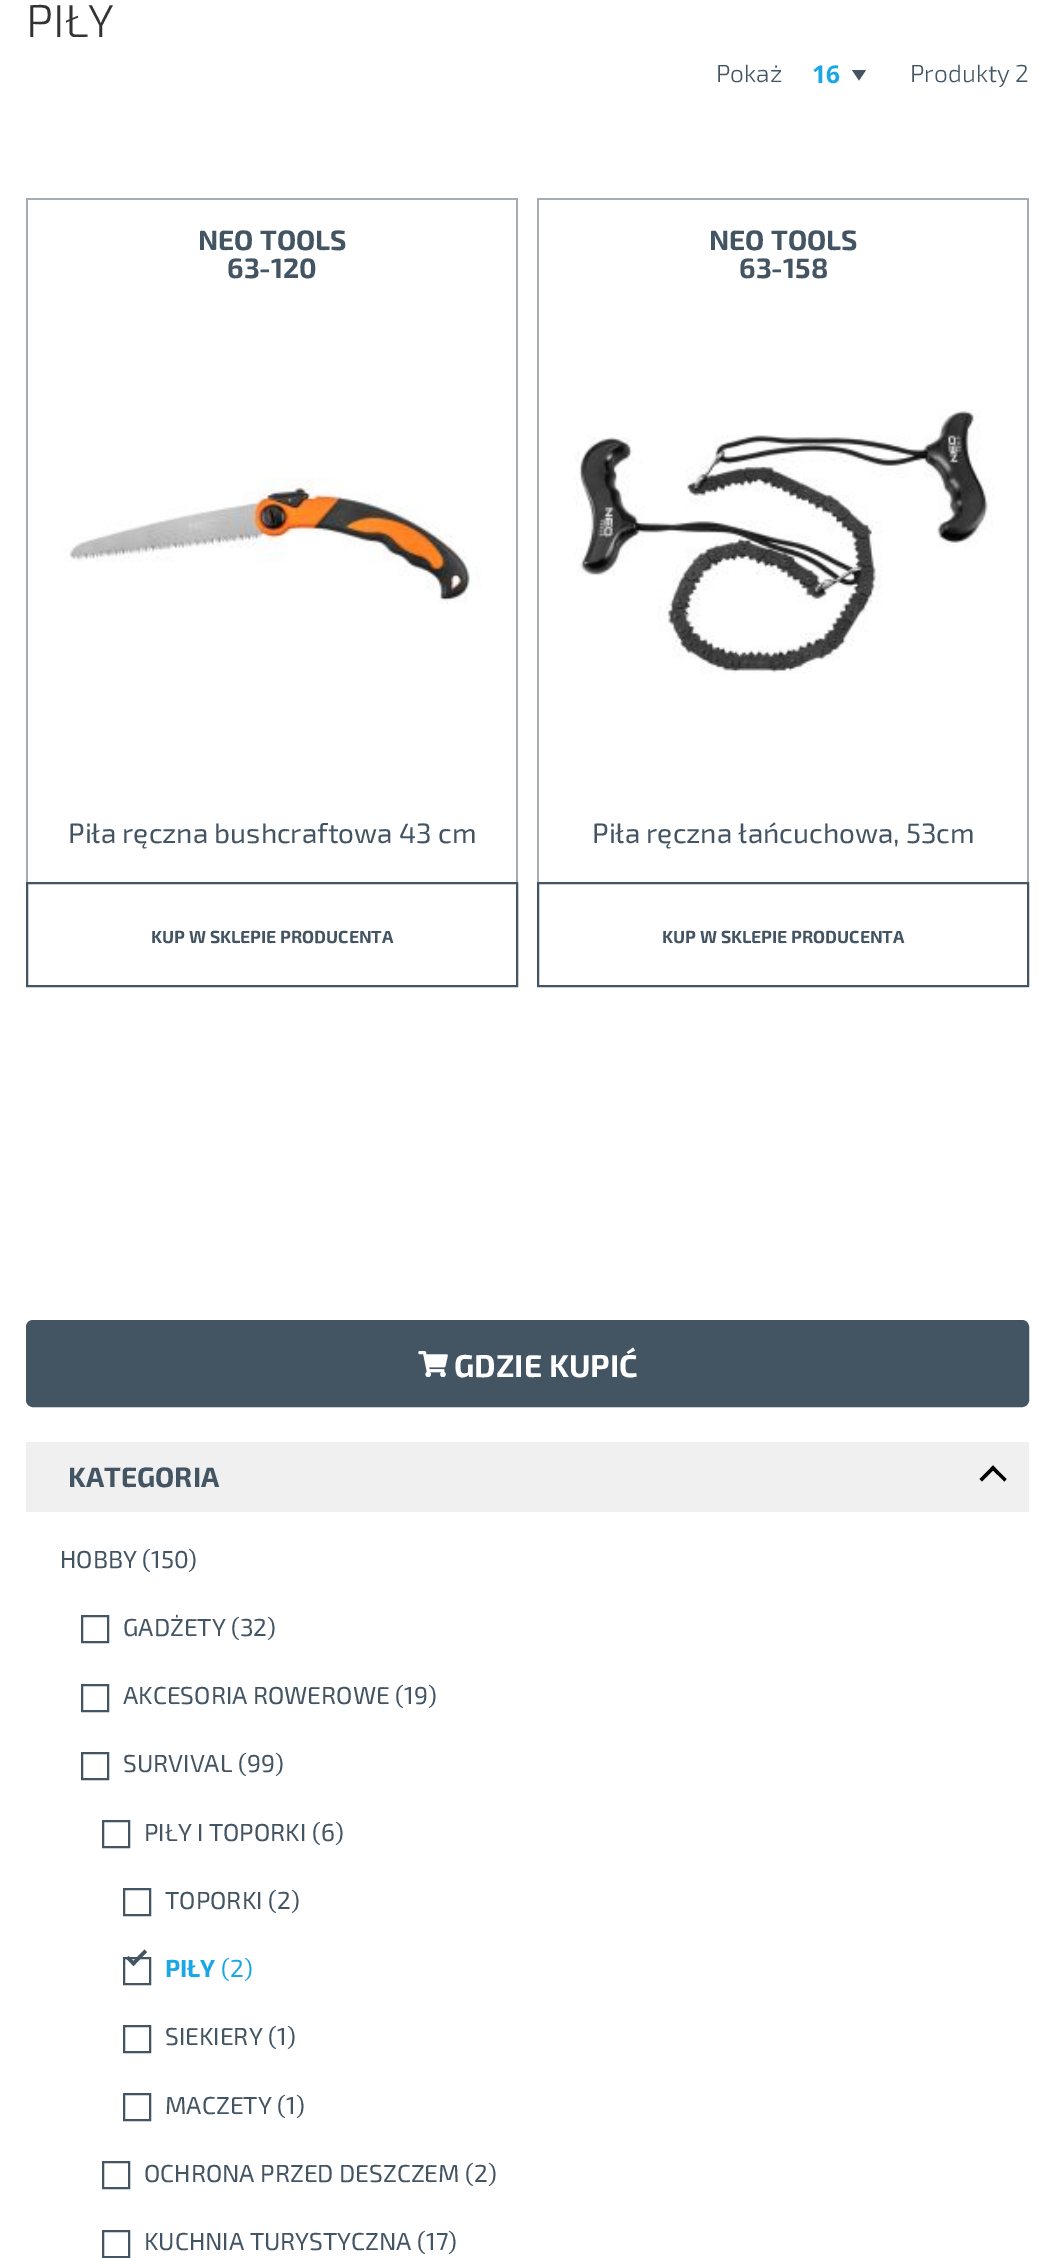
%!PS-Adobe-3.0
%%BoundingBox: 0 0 1054 2258
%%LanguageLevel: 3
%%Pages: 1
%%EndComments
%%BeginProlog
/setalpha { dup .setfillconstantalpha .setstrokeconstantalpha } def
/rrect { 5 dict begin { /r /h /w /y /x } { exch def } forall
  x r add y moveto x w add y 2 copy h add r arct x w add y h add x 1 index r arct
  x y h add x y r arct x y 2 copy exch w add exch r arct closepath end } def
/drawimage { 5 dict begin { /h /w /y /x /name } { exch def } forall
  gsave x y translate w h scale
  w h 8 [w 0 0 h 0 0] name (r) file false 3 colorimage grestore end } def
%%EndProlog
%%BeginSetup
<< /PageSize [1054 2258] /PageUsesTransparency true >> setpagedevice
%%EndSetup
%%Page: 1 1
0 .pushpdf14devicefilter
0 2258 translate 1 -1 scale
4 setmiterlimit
1 setgray
0 0 1054 2258 rectfill
0.263 0.329 0.388 setrgbcolor
newpath 852 70 moveto 866 70 lineto 859 80.5 lineto closepath fill
0.647 0.682 0.702 setrgbcolor
newpath 26 198 moveto 518 198 lineto 516 200 lineto 28 200 lineto closepath fill
0.5 setalpha
0.294 0.361 0.4 setrgbcolor
newpath 518 198 moveto 518 882 lineto 516 882 lineto 516 200 lineto closepath fill
newpath 26 882 moveto 26 198 lineto 28 200 lineto 28 882 lineto closepath fill
1 setalpha
(images/1.raw) 62 477 419 127 drawimage
0.263 0.329 0.388 setrgbcolor
2 setlinewidth
27 883 490 103 rectstroke
0.647 0.682 0.702 setrgbcolor
newpath 537 198 moveto 1029 198 lineto 1027 200 lineto 539 200 lineto closepath fill
0.5 setalpha
0.294 0.361 0.4 setrgbcolor
newpath 1029 198 moveto 1029 882 lineto 1027 882 lineto 1027 200 lineto closepath fill
newpath 537 882 moveto 537 198 lineto 539 200 lineto 539 882 lineto closepath fill
1 setalpha
(images/2.raw) 574 409 420 265 drawimage
0.263 0.329 0.388 setrgbcolor
538 883 490 103 rectstroke
27 1321 1001 85 6 rrect gsave fill grestore
stroke
(images/3.raw) 418 1351 30 26 drawimage
0.941 setgray
26 1442 1003 70 rectfill
0 setgray
newpath 979.5 1479 moveto 993 1465.5 lineto 995.5 1468 lineto 982 1481.5 lineto closepath fill
newpath 990.5 1468 moveto 993 1465.5 lineto 1006.5 1479 lineto 1004.5 1481.5 lineto closepath fill
0.263 0.329 0.388 setrgbcolor
82 1616 26 26 rectstroke
82 1685 26 26 rectstroke
82 1753 26 26 rectstroke
103 1821 26 26 rectstroke
124 1889 26 26 rectstroke
124 1958 26 26 rectstroke
newpath 144.5 1949.5 moveto 147 1952 lineto 133.5 1966 lineto 131 1963.5 lineto closepath fill
newpath 128.5 1956 moveto 136 1963.5 lineto 133.5 1966 lineto 126 1958.5 lineto closepath fill
124 2026 26 26 rectstroke
124 2094 26 26 rectstroke
103 2162 26 26 rectstroke
103 2231 26 26 rectstroke
/Exo2-Light [46 0 0 -46 0 0] selectfont
0.2 setgray
26 37 moveto (PIŁY) show
/Exo2-Light [24.5 0 0 -24.5 0 0] selectfont
0.263 0.329 0.388 setrgbcolor
716 82 moveto (Pokaż) show
/OpenSans-Bold [24.5 0 0 -24.5 0 0] selectfont
0.102 0.655 0.894 setrgbcolor
812 83 moveto (16) show
/Exo2-Light [24.5 0 0 -24.5 0 0] selectfont
0.263 0.329 0.388 setrgbcolor
910 82 moveto (Produkty 2) show
/Exo2-Bold [28 0 0 -28 0 0] selectfont
198 250 moveto (NEO TOOLS) show
227 278 moveto (63-120) show
/Exo2-Regular [28 0 0 -28 0 0] selectfont
68 843 moveto (Piła ręczna bushcraftowa 43 cm) show
/Exo2-Bold [17.5 0 0 -17.5 0 0] selectfont
151 943 moveto (KUP W SKLEPIE PRODUCENTA) show
/Exo2-Bold [28 0 0 -28 0 0] selectfont
709 250 moveto (NEO TOOLS) show
739 278 moveto (63-158) show
/Exo2-Regular [28 0 0 -28 0 0] selectfont
592 843 moveto (Piła ręczna łańcuchowa, 53cm) show
/Exo2-Bold [17.5 0 0 -17.5 0 0] selectfont
662 943 moveto (KUP W SKLEPIE PRODUCENTA) show
/Exo2-Bold [31.5 0 0 -31.5 0 0] selectfont
1 setgray
454 1377 moveto (GDZIE KUPIĆ) show
/Exo2-Bold [28 0 0 -28 0 0] selectfont
0.263 0.329 0.388 setrgbcolor
68 1487 moveto (KATEGORIA) show
/Exo2-Regular [24.5 0 0 -24.5 0 0] selectfont
60 1568 moveto (HOBBY) show
142 1568 moveto (\(150\)) show
123 1636 moveto (GADŻETY) show
231 1636 moveto (\(32\)) show
123 1704 moveto (AKCESORIA ROWEROWE) show
395 1704 moveto (\(19\)) show
123 1772 moveto (SURVIVAL) show
238 1772 moveto (\(99\)) show
144 1841 moveto (PIŁY I TOPORKI) show
312 1841 moveto (\(6\)) show
165 1909 moveto (TOPORKI) show
268 1909 moveto (\(2\)) show
/Exo2-Bold [24.5 0 0 -24.5 0 0] selectfont
0.102 0.655 0.894 setrgbcolor
165 1977 moveto (PIŁY) show
/Exo2-Regular [24.5 0 0 -24.5 0 0] selectfont
221 1977 moveto (\(2\)) show
0.263 0.329 0.388 setrgbcolor
165 2045 moveto (SIEKIERY) show
268 2045 moveto (\(1\)) show
165 2114 moveto (MACZETY) show
277 2114 moveto (\(1\)) show
144 2182 moveto (OCHRONA PRZED DESZCZEM) show
465 2182 moveto (\(2\)) show
144 2250 moveto (KUCHNIA TURYSTYCZNA) show
417 2250 moveto (\(17\)) show
.poppdf14devicefilter showpage
%%EOF
